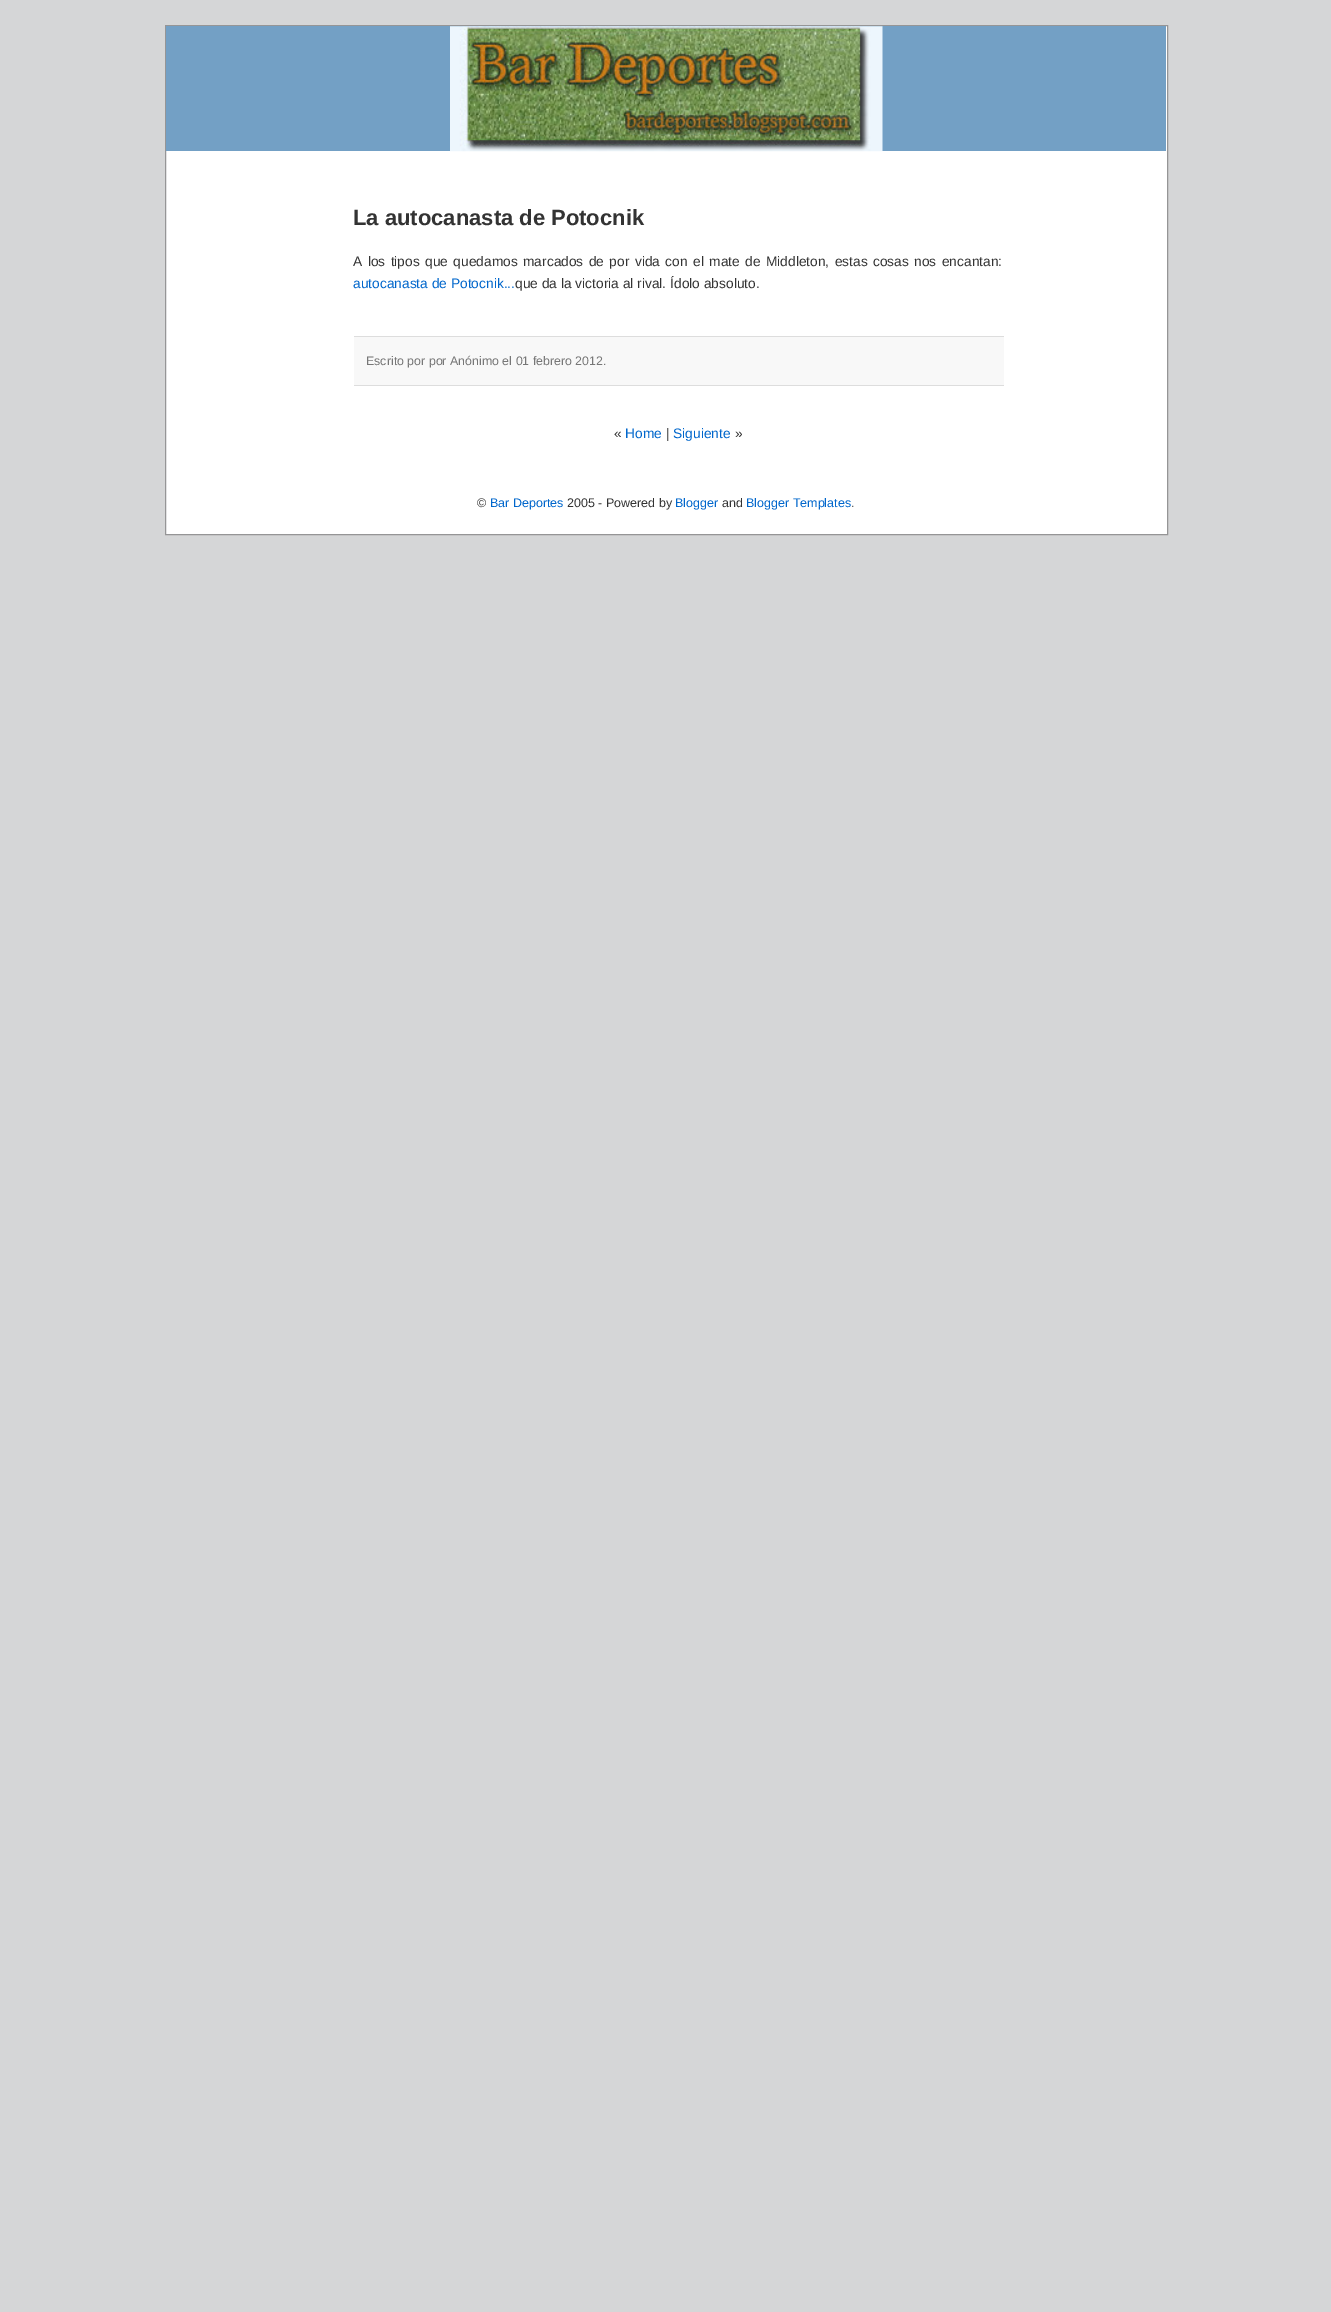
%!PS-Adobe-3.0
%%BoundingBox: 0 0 1331 2312
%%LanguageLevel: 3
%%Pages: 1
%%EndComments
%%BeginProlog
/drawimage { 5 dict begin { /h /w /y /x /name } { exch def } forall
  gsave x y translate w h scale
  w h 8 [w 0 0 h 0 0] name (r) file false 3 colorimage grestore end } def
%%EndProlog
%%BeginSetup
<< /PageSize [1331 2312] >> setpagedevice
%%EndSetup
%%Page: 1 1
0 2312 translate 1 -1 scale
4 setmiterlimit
0.835 0.839 0.843 setrgbcolor
0 0 1331 2312 rectfill
1 setgray
newpath 165.5 25.5 moveto 1167.5 25.5 lineto 1167.5 534.5 lineto 165.5 534.5 lineto closepath gsave fill grestore
0.584 0.584 0.588 setrgbcolor
stroke
0.451 0.627 0.773 setrgbcolor
166 26 1000 125 rectfill
(images/1.raw) 450 26 433 126 drawimage
0.973 setgray
354 337 650 48 rectfill
0.867 setgray
354 336 650 1 rectfill
354 385 650 1 rectfill
/LiberationSans-Bold [22 0 0 -22 0 0] selectfont
0.2 setgray
353 225 moveto (La autocanasta de Potocnik) show
/LiberationSans-Regular [13.75 0 0 -13.75 0 0] selectfont
353 266 moveto 1.6 0 32 (A los tipos que quedamos marcados de por vida con el mate de Middleton, estas cosas nos encantan:) widthshow
0 0.4 0.8 setrgbcolor
353 288 moveto (autocanasta de Potocnik...) show
0.2 setgray
515 288 moveto (que da la victoria al rival. Ídolo absoluto.) show
/LiberationSans-Regular [12.4 0 0 -12.4 0 0] selectfont
0.467 setgray
366 365 moveto (Escrito por por Anónimo el 01 febrero 2012.) show
/LiberationSans-Regular [13.75 0 0 -13.75 0 0] selectfont
0.2 setgray
614 438 moveto («) show
0 0.4 0.8 setrgbcolor
625 438 moveto (Home) show
0.2 setgray
666 438 moveto (|) show
0 0.4 0.8 setrgbcolor
673 438 moveto (Siguiente) show
0.2 setgray
735 438 moveto (») show
/LiberationSans-Regular [12.5 0 0 -12.5 0 0] selectfont
477 507 moveto (©) show
0 0.4 0.8 setrgbcolor
490 507 moveto (Bar Deportes) show
0.2 setgray
567 507 moveto (2005 - Powered by) show
0 0.4 0.8 setrgbcolor
675 507 moveto (Blogger) show
0.2 setgray
722 507 moveto (and) show
0 0.4 0.8 setrgbcolor
746 507 moveto (Blogger Templates) show
0.2 setgray
851 507 moveto (.) show
showpage
%%EOF
